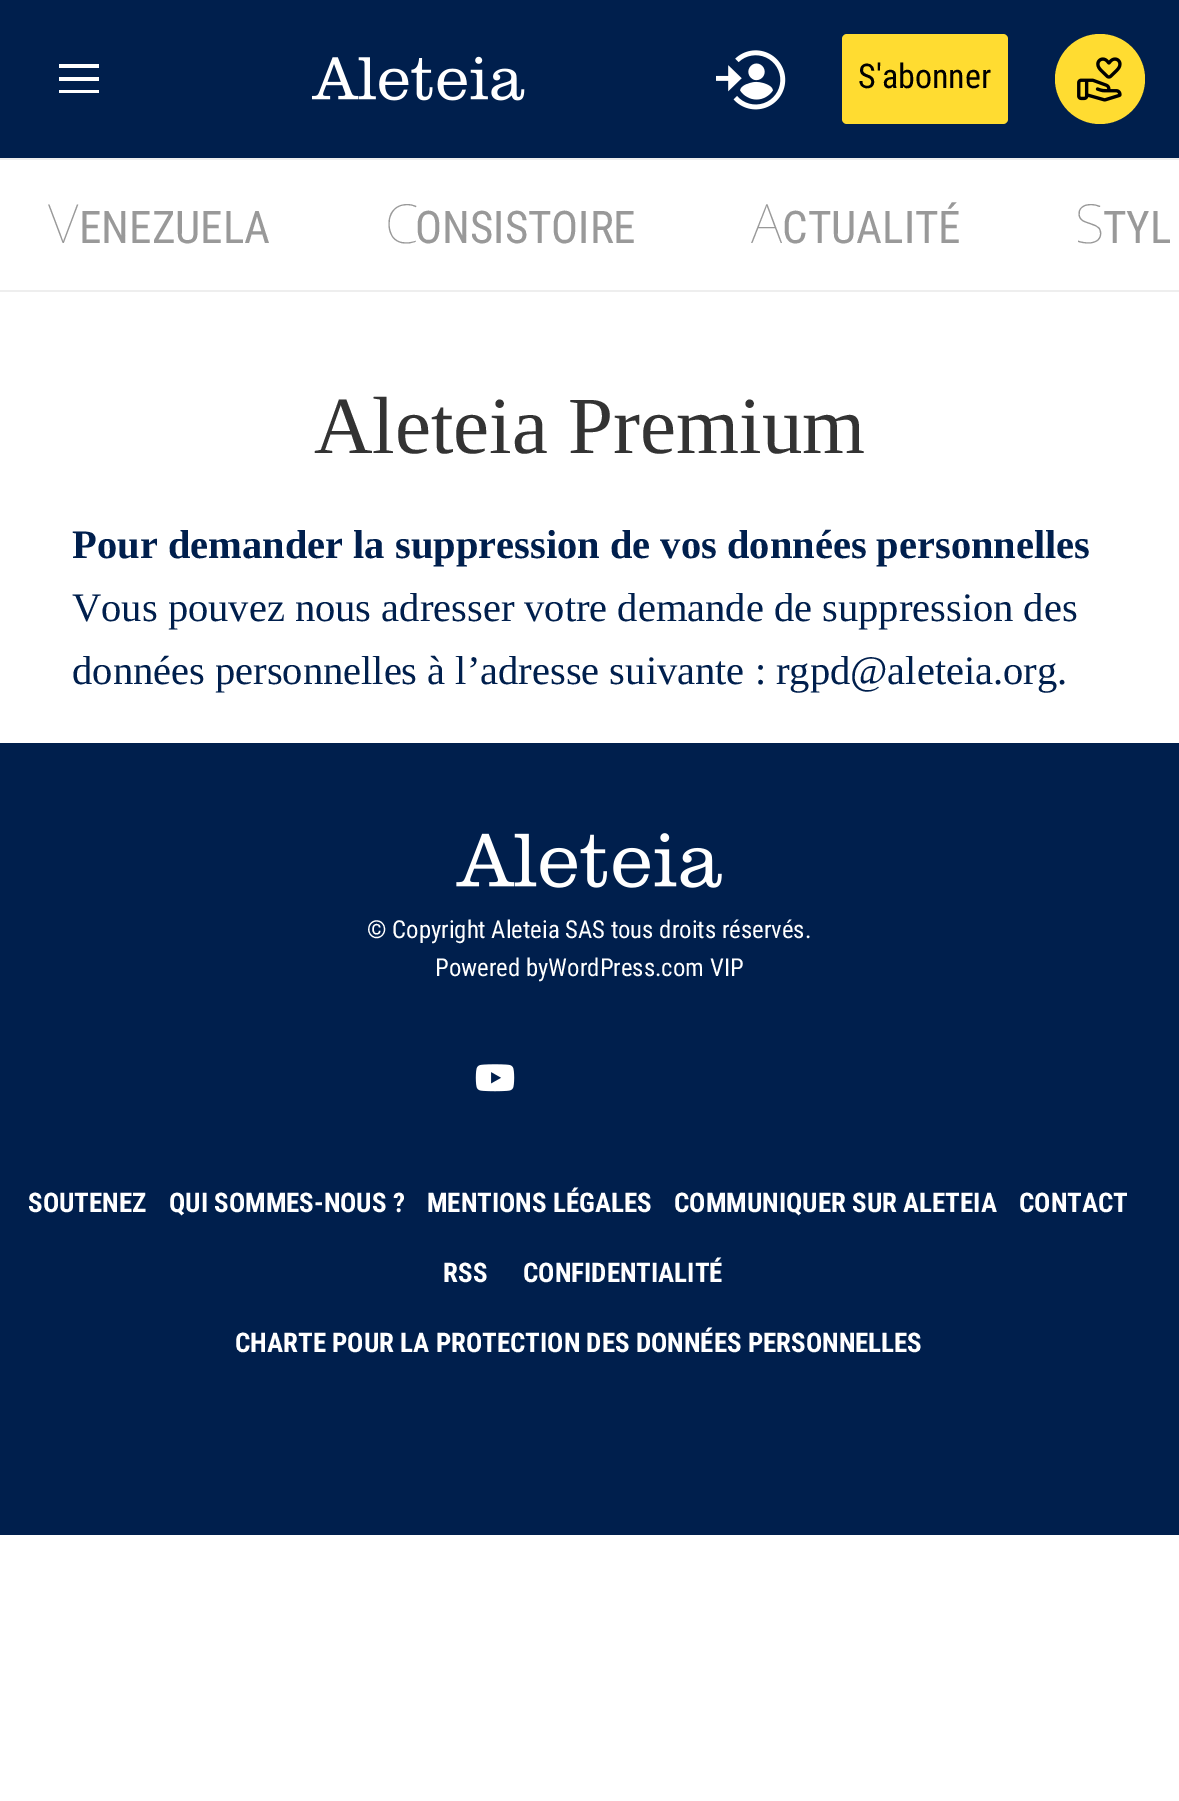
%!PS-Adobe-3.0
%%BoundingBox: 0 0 1179 1801
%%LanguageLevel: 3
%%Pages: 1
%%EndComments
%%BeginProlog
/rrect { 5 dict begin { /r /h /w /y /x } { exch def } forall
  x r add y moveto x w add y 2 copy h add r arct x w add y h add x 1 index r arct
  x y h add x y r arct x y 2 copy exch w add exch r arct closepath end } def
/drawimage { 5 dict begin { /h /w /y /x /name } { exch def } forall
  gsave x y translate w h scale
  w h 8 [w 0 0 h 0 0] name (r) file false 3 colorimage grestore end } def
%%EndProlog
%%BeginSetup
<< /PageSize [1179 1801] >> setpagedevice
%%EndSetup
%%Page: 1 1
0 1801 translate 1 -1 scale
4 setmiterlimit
1 setgray
0 0 1179 1801 rectfill
0 0.122 0.302 setrgbcolor
0 0 1179 158 rectfill
gsave
59 59 40 40 rectclip
1 setgray
newpath 58 90 moveto 58 93 lineto 99 93 lineto 99 90 lineto closepath 58 77 moveto 58 81 lineto 99 81 lineto 99 77 lineto closepath 58 64 moveto 58 68 lineto 99 68 lineto 99 64 lineto closepath eofill
grestore
(images/1.raw) 312 56 213 45 drawimage
(images/2.raw) 716 50 70 60 drawimage
1 0.863 0.192 setrgbcolor
842 34 166 90 5 rrect fill
newpath 1100 79 45 0 360 arc closepath fill
(images/3.raw) 1077 57 45 45 drawimage
0.933 setgray
0 158 1179 2 rectfill
0 290 1179 2 rectfill
0 0.122 0.302 setrgbcolor
0 743 1179 792 rectfill
(images/4.raw) 456 833 266 55 drawimage
(images/5.raw) 475 1064 40 28 drawimage
/RobotoCondensed-Regular [34 0 0 -34 0 0] selectfont
0 setgray
858 88 moveto (S'abonner) show
/NotoSans-Thin [54 0 0 -54 0 0] selectfont
0.6 setgray
48 243 moveto (V) show
/RobotoCondensed-Regular [45 0 0 -45 0 0] selectfont
79 243 moveto (ENEZUELA) show
/NotoSans-Thin [54 0 0 -54 0 0] selectfont
385 243 moveto (C) show
/RobotoCondensed-Regular [45 0 0 -45 0 0] selectfont
415 243 moveto (ONSISTOIRE) show
/NotoSans-Thin [54 0 0 -54 0 0] selectfont
751 243 moveto (A) show
/RobotoCondensed-Regular [45 0 0 -45 0 0] selectfont
782 243 moveto (CTUALITÉ) show
/NotoSans-Thin [54 0 0 -54 0 0] selectfont
1075 243 moveto (S) show
/RobotoCondensed-Regular [45 0 0 -45 0 0] selectfont
1103 243 moveto (TYL) show
/LiberationSerif-Regular [81 0 0 -81 0 0] selectfont
0.2 setgray
314 453 moveto (Aleteia Premium) show
/LiberationSerif-Bold [40.5 0 0 -40.5 0 0] selectfont
0 0.122 0.302 setrgbcolor
72 558 moveto (Pour demander la suppression de vos données personnelles) show
/LiberationSerif-Regular [40.5 0 0 -40.5 0 0] selectfont
72 621 moveto (Vous pouvez nous adresser votre demande de suppression des) show
72 684 moveto (données personnelles à l’adresse suivante : rgpd@aleteia.org.) show
/RobotoCondensed-Regular [24.75 0 0 -24.75 0 0] selectfont
1 setgray
367 938 moveto (© Copyright Aleteia SAS tous droits réservés.) show
435 976 moveto (Powered byWordPress.com VIP) show
/RobotoCondensed-Bold [27 0 0 -27 0 0] selectfont
28 1212 moveto (SOUTENEZ) show
169 1212 moveto (QUI SOMMES-NOUS ?) show
427 1212 moveto (MENTIONS LÉGALES) show
674 1212 moveto (COMMUNIQUER SUR ALETEIA) show
1019 1212 moveto (CONTACT) show
443 1282 moveto (RSS) show
523 1282 moveto (CONFIDENTIALITÉ) show
235 1352 moveto (CHARTE POUR LA PROTECTION DES DONNÉES PERSONNELLES) show
showpage
%%EOF
